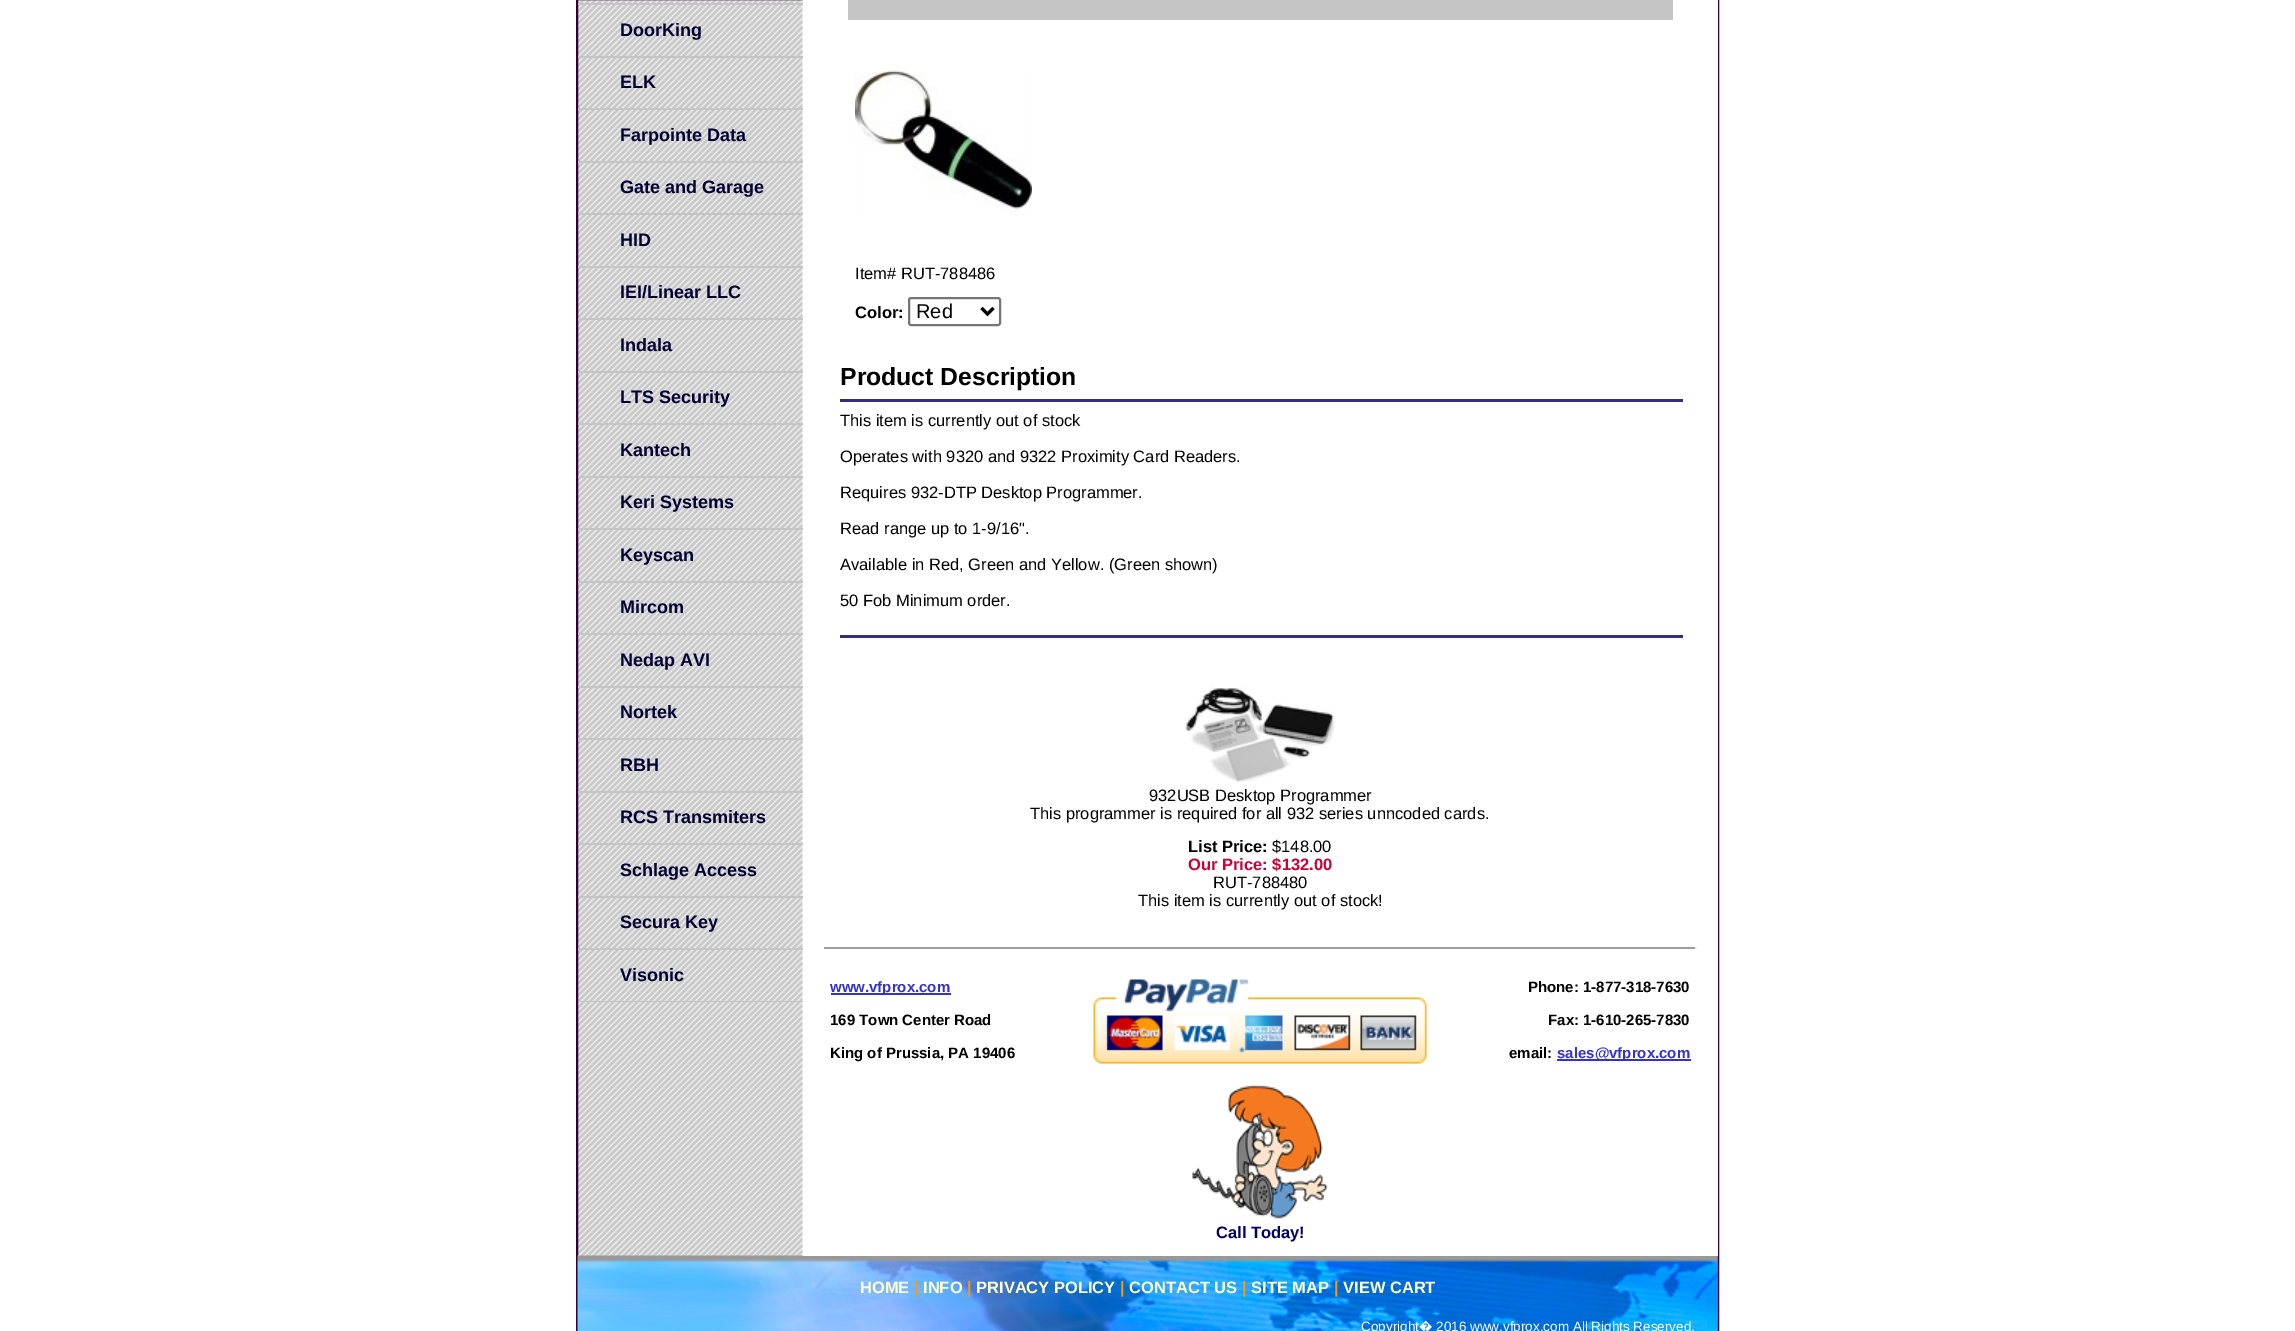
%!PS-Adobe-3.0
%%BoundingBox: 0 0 2295 1331
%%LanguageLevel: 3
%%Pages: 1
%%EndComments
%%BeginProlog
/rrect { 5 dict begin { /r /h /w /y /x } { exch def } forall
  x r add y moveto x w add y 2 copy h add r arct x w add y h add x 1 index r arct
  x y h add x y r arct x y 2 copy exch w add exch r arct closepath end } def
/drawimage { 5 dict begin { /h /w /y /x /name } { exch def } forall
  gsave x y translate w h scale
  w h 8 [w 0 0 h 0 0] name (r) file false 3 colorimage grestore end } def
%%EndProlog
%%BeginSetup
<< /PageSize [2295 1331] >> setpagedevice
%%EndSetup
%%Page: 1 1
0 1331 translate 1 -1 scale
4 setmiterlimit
1 setgray
0 0 2295 1331 rectfill
(images/1.raw) 578 0 225 1256 drawimage
0.2 0 0.2 setrgbcolor
2 setlinewidth
577 -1 1141 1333 rectstroke
0.773 setgray
578 3 225 2 rectfill
578 56 225 2 rectfill
578 108 225 2 rectfill
578 161 225 2 rectfill
578 213 225 2 rectfill
578 266 225 2 rectfill
578 318 225 2 rectfill
578 371 225 2 rectfill
578 423 225 2 rectfill
578 476 225 2 rectfill
578 528 225 2 rectfill
578 581 225 2 rectfill
578 633 225 2 rectfill
578 686 225 2 rectfill
578 738 225 2 rectfill
578 791 225 2 rectfill
578 843 225 2 rectfill
578 896 225 2 rectfill
578 948 225 2 rectfill
578 1001 225 1 rectfill
0.384 setgray
1717 1256 1 75 rectfill
(images/6.raw) 577 1255 1141 76 drawimage
1 setgray
803 0 915 1256 rectfill
0.773 setgray
848 0 825 20 rectfill
(images/2.raw) 855 68 177 148 drawimage
0.463 setgray
909 298 91 27 2 rrect stroke
0 setgray
3 setlinewidth
newpath 981.5 308 moveto 987.5 314 lineto 993.5 308 lineto stroke
0.204 0.176 0.494 setrgbcolor
840 399 843 3 rectfill
840 635 843 3 rectfill
(images/3.raw) 1185 687 150 95 drawimage
0.624 setgray
824 947 873 2 rectfill
0.933 setgray
1695 947 2 2 rectfill
0.2 0.2 0.8 setrgbcolor
831 993 120 2 rectfill
(images/4.raw) 1093 979 334 85 drawimage
1557 1059 134 2 rectfill
(images/5.raw) 1192 1085 136 134 drawimage
/LiberationSans-Bold [18 0 0 -18 0 0] selectfont
0 0 0.2 setrgbcolor
620 36 moveto (DoorKing) show
620 88 moveto (ELK) show
620 141 moveto (Farpointe Data) show
620 193 moveto (Gate and Garage) show
620 246 moveto (HID) show
620 298 moveto (IEI/Linear LLC) show
620 351 moveto (Indala) show
620 403 moveto (LTS Security) show
620 456 moveto (Kantech) show
620 508 moveto (Keri Systems) show
620 561 moveto (Keyscan) show
620 613 moveto (Mircom) show
620 666 moveto (Nedap AVI) show
620 718 moveto (Nortek) show
620 771 moveto (RBH) show
620 823 moveto (RCS Transmiters) show
620 876 moveto (Schlage Access) show
620 928 moveto (Secura Key) show
620 981 moveto (Visonic) show
/LiberationSans-Regular [16.5 0 0 -16.5 0 0] selectfont
0 setgray
855 279 moveto (Item# RUT-788486) show
/LiberationSans-Bold [16.5 0 0 -16.5 0 0] selectfont
855 318 moveto (Color:) show
/LiberationSans-Regular [20 0 0 -20 0 0] selectfont
916 318 moveto (Red) show
/LiberationSans-Bold [24.75 0 0 -24.75 0 0] selectfont
840 385 moveto (Product Description) show
/LiberationSans-Regular [16.5 0 0 -16.5 0 0] selectfont
840 426 moveto (This item is currently out of stock) show
840 462 moveto (Operates with 9320 and 9322 Proximity Card Readers.) show
840 498 moveto (Requires 932-DTP Desktop Programmer.) show
840 534 moveto (Read range up to 1-9/16".) show
840 570 moveto (Available in Red, Green and Yellow. \(Green shown\)) show
840 606 moveto (50 Fob Minimum order.) show
1149 801 moveto (932USB Desktop Programmer) show
1030 819 moveto (This programmer is required for all 932 series unncoded cards.) show
/LiberationSans-Bold [16.5 0 0 -16.5 0 0] selectfont
1188 852 moveto (List Price:) show
/LiberationSans-Regular [16.5 0 0 -16.5 0 0] selectfont
1272 852 moveto ($148.00) show
/LiberationSans-Bold [16.5 0 0 -16.5 0 0] selectfont
0.8 0 0.2 setrgbcolor
1188 870 moveto (Our Price: $132.00) show
/LiberationSans-Regular [16.5 0 0 -16.5 0 0] selectfont
0 setgray
1213 888 moveto (RUT-788480) show
1138 906 moveto (This item is currently out of stock!) show
/LiberationSans-Bold [15 0 0 -15 0 0] selectfont
0.2 0.2 0.8 setrgbcolor
830 992 moveto (www.vfprox.com) show
0 setgray
830 1025 moveto (169 Town Center Road) show
830 1058 moveto (King of Prussia, PA 19406) show
1528 992 moveto (Phone: 1-877-318-7630) show
1548 1025 moveto (Fax: 1-610-265-7830) show
1509 1058 moveto (email:) show
0.2 0.2 0.8 setrgbcolor
1557 1058 moveto (sales@vfprox.com) show
/LiberationSans-Bold [16.5 0 0 -16.5 0 0] selectfont
0 0 0.4 setrgbcolor
1216 1238 moveto (Call Today!) show
1 1 0.8 setrgbcolor
860 1293 moveto (HOME) show
1 0.6 0 setrgbcolor
914 1293 moveto (|) show
1 1 0.8 setrgbcolor
923 1293 moveto (INFO) show
1 0.6 0 setrgbcolor
967 1293 moveto (|) show
1 1 0.8 setrgbcolor
976 1293 moveto (PRIVACY POLICY) show
1 0.6 0 setrgbcolor
1120 1293 moveto (|) show
1 1 0.8 setrgbcolor
1129 1293 moveto (CONTACT US) show
1 0.6 0 setrgbcolor
1242 1293 moveto (|) show
1 1 0.8 setrgbcolor
1251 1293 moveto (SITE MAP) show
1 0.6 0 setrgbcolor
1334 1293 moveto (|) show
1 1 0.8 setrgbcolor
1343 1293 moveto (VIEW CART) show
/LiberationSans-Regular [13.5 0 0 -13.5 0 0] selectfont
1 setgray
1361 1331 moveto (Copyright) show
/NotoSans-Regular [13.5 0 0 -13.5 0 0] selectfont
1419 1331 moveto (�) show
/LiberationSans-Regular [13.5 0 0 -13.5 0 0] selectfont
1436 1331 moveto (2016 www.vfprox.com All Rights Reserved.) show
showpage
%%EOF
